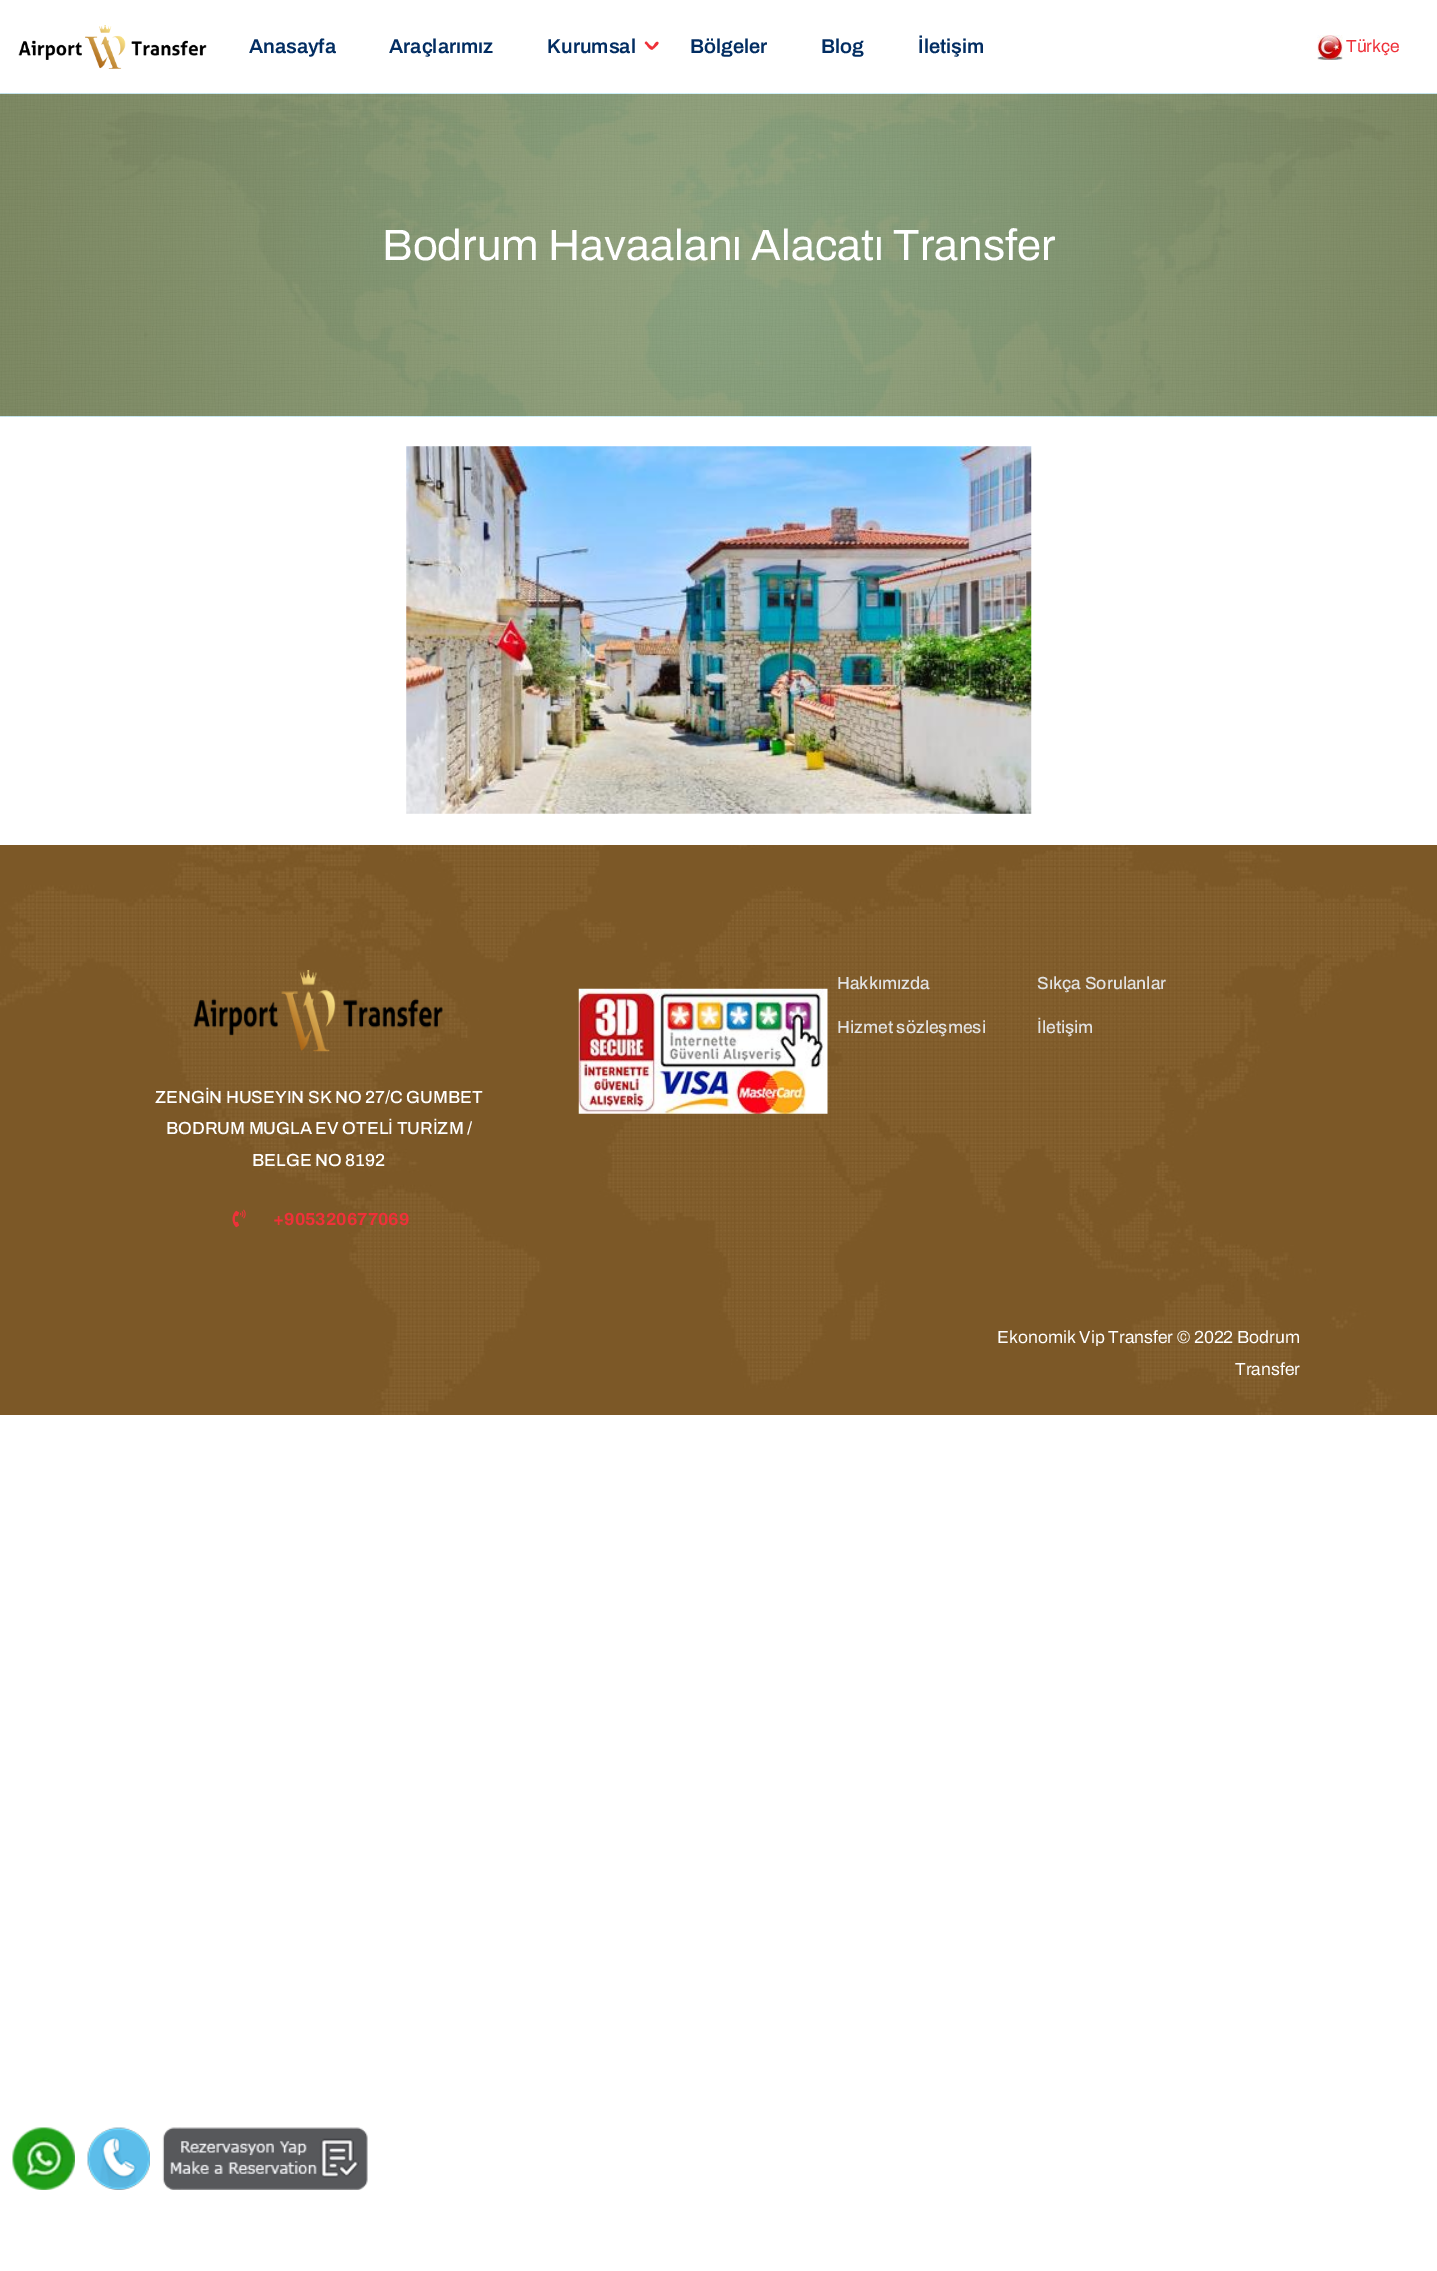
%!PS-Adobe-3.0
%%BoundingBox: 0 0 1437 2271
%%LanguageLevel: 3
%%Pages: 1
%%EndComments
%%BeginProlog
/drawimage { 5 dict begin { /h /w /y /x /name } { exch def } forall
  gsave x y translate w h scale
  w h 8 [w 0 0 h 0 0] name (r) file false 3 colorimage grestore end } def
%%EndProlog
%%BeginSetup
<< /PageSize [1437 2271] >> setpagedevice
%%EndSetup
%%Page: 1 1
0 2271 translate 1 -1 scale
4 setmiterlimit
1 setgray
0 0 1437 2271 rectfill
(images/1.raw) 18 25 189 44 drawimage
0.937 0.192 0.224 setrgbcolor
newpath 647 42 moveto 649.5 45 lineto 650.5 45.5 653.5 47.5 652.5 49 curveto 651 51 647.5 46.5 647 45.5 curveto 645 43.5 lineto 644.5 42.5 646 41 647 42 curveto closepath fill
newpath 651.5 47.5 moveto 654 45 lineto 654.5 44 656.5 41 658 42 curveto 660 43.5 655.5 46.5 655 47.5 curveto 652.5 49.5 lineto 651.5 50 650.5 48.5 651.5 47.5 curveto closepath fill
(images/2.raw) 1317 35 26 25 drawimage
(images/3.raw) 0 93 1437 324 drawimage
(images/4.raw) 406 446 626 368 drawimage
(images/5.raw) 0 845 1437 570 drawimage
(images/6.raw) 578 988 250 126 drawimage
(images/7.raw) 193 970 250 82 drawimage
(images/8.raw) 232 1209 14 19 drawimage
(images/9.raw) 12 2127 63 63 drawimage
(images/10.raw) 87 2127 63 63 drawimage
(images/11.raw) 162 2127 206 63 drawimage
/Archivo-SemiBold [20 0 0 -20 0 0] selectfont
0.008 0.176 0.384 setrgbcolor
249 53 moveto (Anasayfa) show
389 53 moveto (Araçlarımız) show
547 53 moveto (Kurumsal) show
690 53 moveto (Bölgeler) show
821 53 moveto (Blog) show
918 53 moveto (İletişim) show
/Archivo-Regular [17.5 0 0 -17.5 0 0] selectfont
0.937 0.192 0.224 setrgbcolor
1346 52 moveto (Türkçe) show
/Archivo-Regular [43.75 0 0 -43.75 0 0] selectfont
1 setgray
382 260 moveto (Bodrum Havaalanı Alacatı Transfer) show
/Archivo-Medium [17.5 0 0 -17.5 0 0] selectfont
0.886 setgray
837 989 moveto (Hakkımızda) show
837 1033 moveto (Hizmet sözleşmesi) show
1037 989 moveto (Sıkça Sorulanlar) show
1037 1033 moveto (İletişim) show
1 setgray
155 1103 moveto (ZENGİN HUSEYIN SK NO 27/C GUMBET) show
166 1134 moveto (BODRUM MUGLA EV OTELİ TURİZM /) show
252 1166 moveto (BELGE NO 8192) show
/Archivo-Bold [17.5 0 0 -17.5 0 0] selectfont
0.937 0.192 0.224 setrgbcolor
273 1225 moveto (+905320677069) show
/Archivo-Regular [17.5 0 0 -17.5 0 0] selectfont
1 setgray
997 1343 moveto (Ekonomik Vip Transfer © 2022 Bodrum) show
1235 1375 moveto (Transfer) show
showpage
%%EOF
